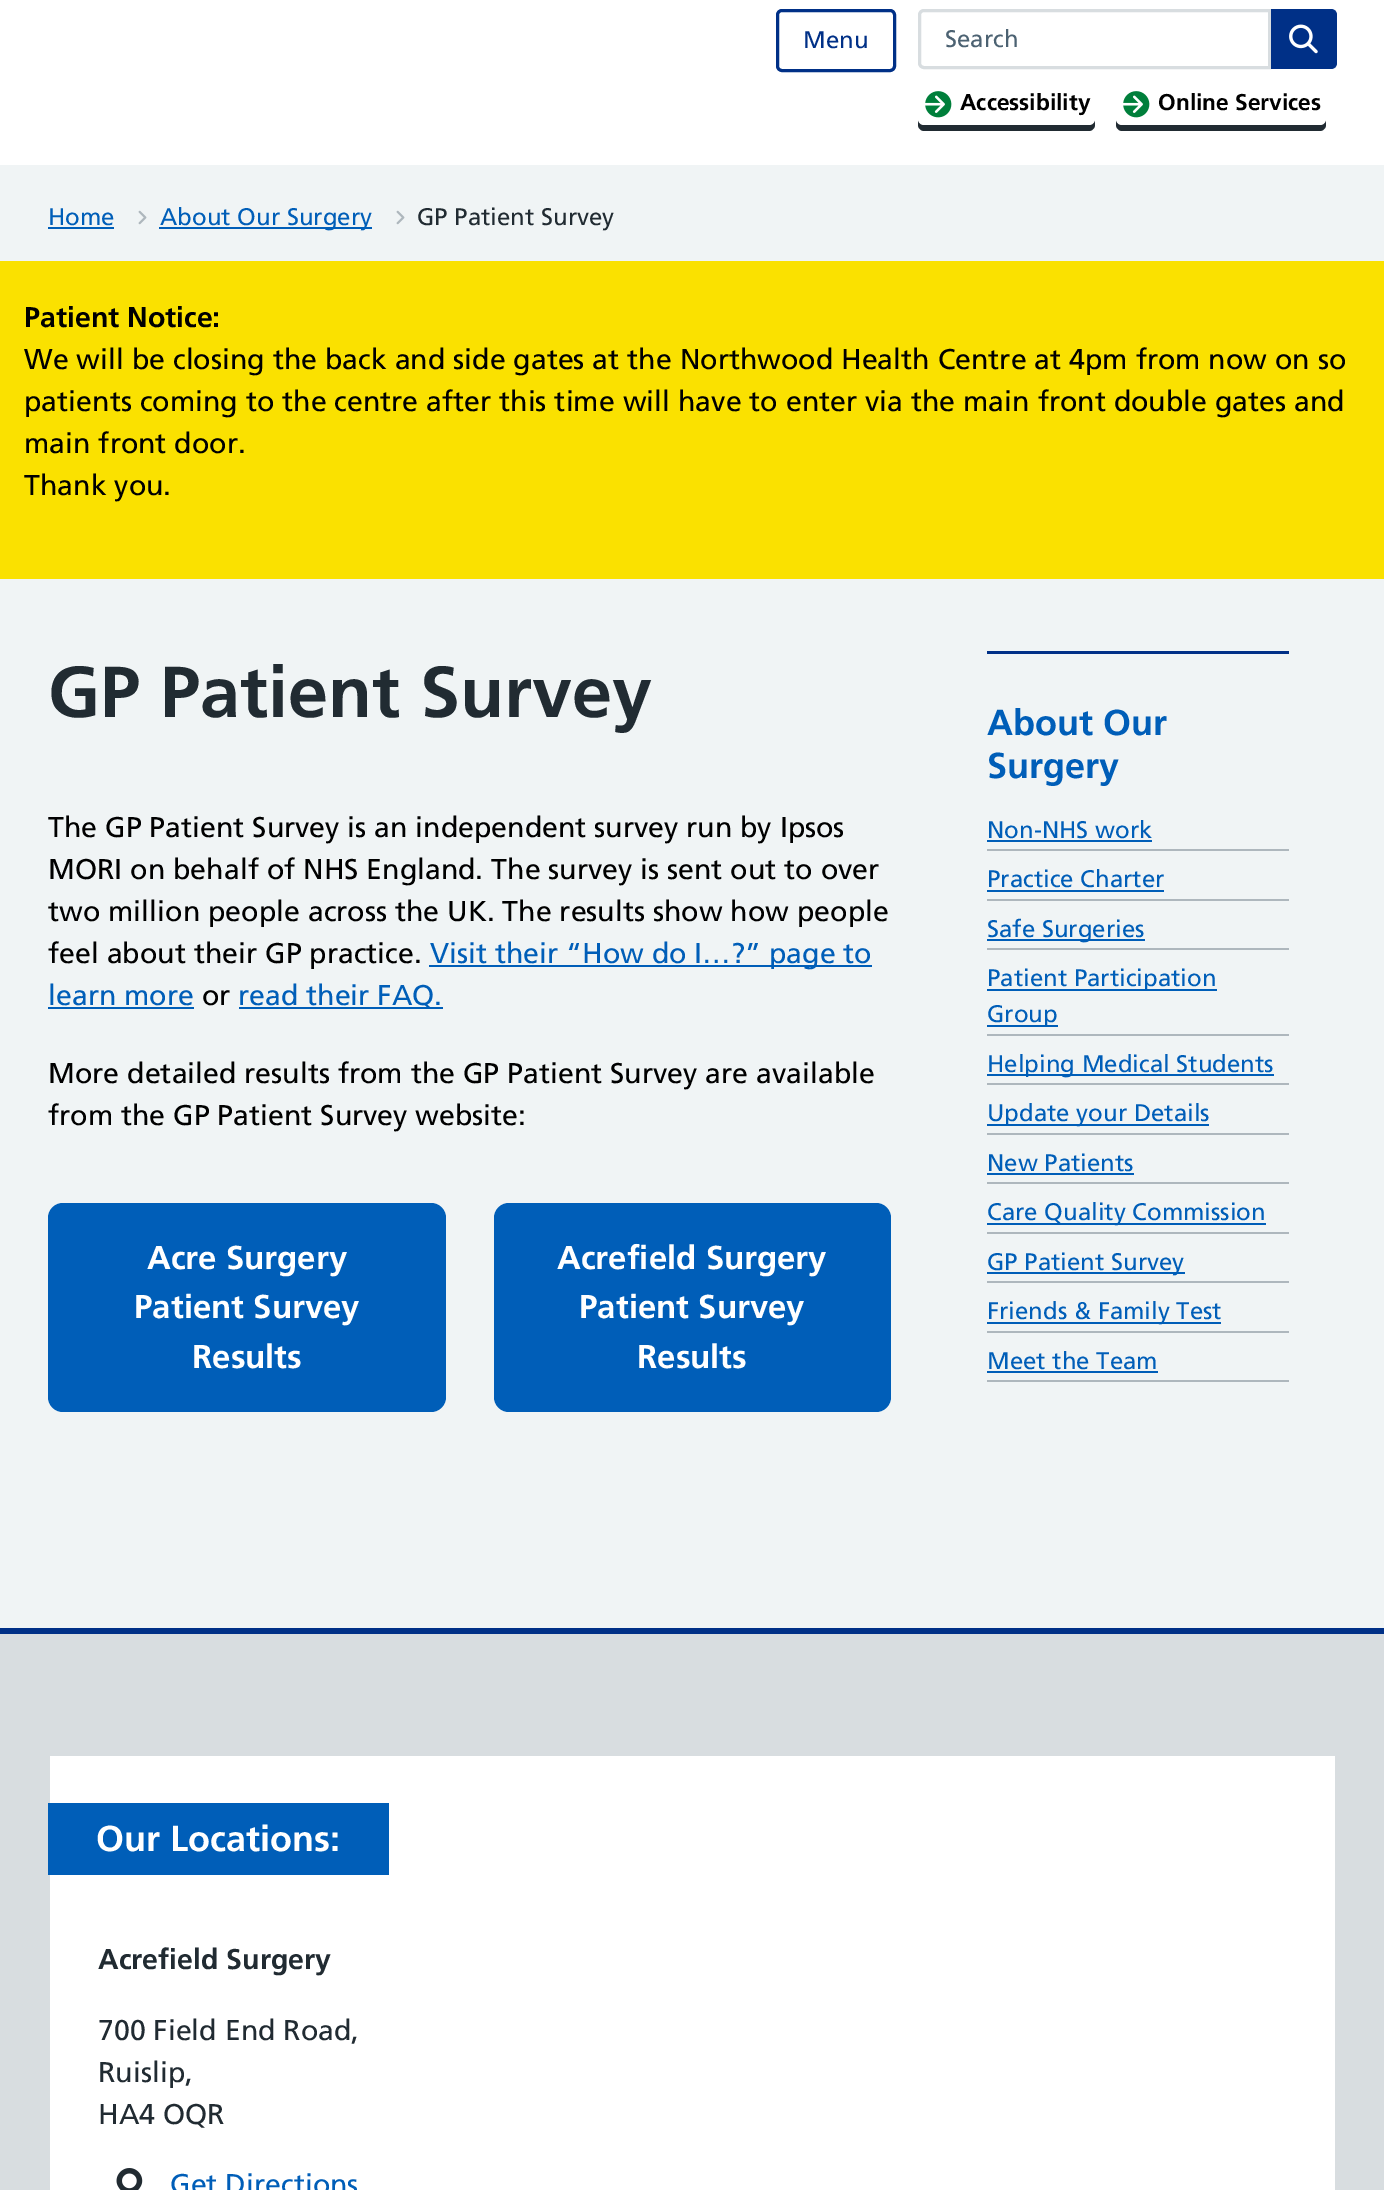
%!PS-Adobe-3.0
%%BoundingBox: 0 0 1384 2190
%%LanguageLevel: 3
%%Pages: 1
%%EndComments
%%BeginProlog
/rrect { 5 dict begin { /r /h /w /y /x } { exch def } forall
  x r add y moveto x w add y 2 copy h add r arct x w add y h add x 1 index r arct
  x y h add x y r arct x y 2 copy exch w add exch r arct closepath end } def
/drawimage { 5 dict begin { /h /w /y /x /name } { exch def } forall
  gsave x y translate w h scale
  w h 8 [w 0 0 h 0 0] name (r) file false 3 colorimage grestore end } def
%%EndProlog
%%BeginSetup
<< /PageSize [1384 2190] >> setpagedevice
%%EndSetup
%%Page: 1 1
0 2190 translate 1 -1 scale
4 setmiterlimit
0.941 0.957 0.961 setrgbcolor
0 0 1384 2190 rectfill
1 setgray
0 0 1384 165 rectfill
0 0.188 0.529 setrgbcolor
3 setlinewidth
777.5 10.5 117 60 4.5 rrect stroke
0.847 0.867 0.878 setrgbcolor
newpath 924 10.5 moveto 1269.5 10.5 lineto 1269.5 67.5 lineto 924 67.5 lineto 921.5 67.5 919.5 65.5 919.5 63 curveto 919.5 15 lineto 919.5 12.5 921.5 10.5 924 10.5 curveto closepath stroke
0 0.188 0.529 setrgbcolor
newpath 1271 9 moveto 1331 9 lineto 1334.5 9 1337 11.5 1337 15 curveto 1337 63 lineto 1337 66.5 1334.5 69 1331 69 curveto 1271 69 lineto closepath fill
(images/1.raw) 1289 24 29 30 drawimage
0.129 0.169 0.196 setrgbcolor
newpath 918 118 moveto 918 125 lineto 918 128 921 131 924 131 curveto 1089 131 lineto 1092 131 1095 128 1095 125 curveto 1095 118 lineto 1095 122 1092 124 1089 124 curveto 924 124 lineto 921 124 918 122 918 118 curveto closepath fill
1 setgray
918 80 177 45 6 rrect fill
(images/2.raw) 925 91 27 27 drawimage
0.129 0.169 0.196 setrgbcolor
newpath 1116 118 moveto 1116 125 lineto 1116 128 1119 131 1122 131 curveto 1320 131 lineto 1323 131 1326 128 1326 125 curveto 1326 118 lineto 1326 122 1323 124 1320 124 curveto 1122 124 lineto 1119 124 1116 122 1116 118 curveto closepath fill
1 setgray
1116 80 210 45 6 rrect fill
(images/2.raw) 1123 91 27 27 drawimage
0 0.369 0.722 setrgbcolor
48 227 66 2 rectfill
(images/3.raw) 138 210 9 15 drawimage
159 227 213 2 rectfill
(images/3.raw) 396 210 9 15 drawimage
0.98 0.882 0 setrgbcolor
0 261 1384 318 rectfill
0 0.369 0.722 setrgbcolor
429 965 443 2 rectfill
48 1007 146 2 rectfill
239 1007 204 2 rectfill
48 1203 398 209 15 rrect fill
494 1203 397 209 15 rrect fill
0 0.188 0.529 setrgbcolor
987 651 302 3 rectfill
0.682 0.718 0.741 setrgbcolor
987 849 302 2 rectfill
0 0.369 0.722 setrgbcolor
987 840 165 2 rectfill
0.682 0.718 0.741 setrgbcolor
987 899 302 2 rectfill
0 0.369 0.722 setrgbcolor
987 890 177 2 rectfill
0.682 0.718 0.741 setrgbcolor
987 948 302 2 rectfill
0 0.369 0.722 setrgbcolor
987 939 158 2 rectfill
0.682 0.718 0.741 setrgbcolor
987 1034 302 2 rectfill
0 0.369 0.722 setrgbcolor
987 989 230 2 rectfill
987 1025 71 2 rectfill
0.682 0.718 0.741 setrgbcolor
987 1083 302 2 rectfill
0 0.369 0.722 setrgbcolor
987 1074 287 2 rectfill
0.682 0.718 0.741 setrgbcolor
987 1133 302 2 rectfill
0 0.369 0.722 setrgbcolor
987 1124 222 2 rectfill
0.682 0.718 0.741 setrgbcolor
987 1182 302 2 rectfill
0 0.369 0.722 setrgbcolor
987 1173 147 2 rectfill
0.682 0.718 0.741 setrgbcolor
987 1232 302 2 rectfill
0 0.369 0.722 setrgbcolor
987 1223 279 2 rectfill
0.682 0.718 0.741 setrgbcolor
987 1281 302 2 rectfill
0 0.369 0.722 setrgbcolor
987 1272 198 2 rectfill
0.682 0.718 0.741 setrgbcolor
987 1331 302 2 rectfill
0 0.369 0.722 setrgbcolor
987 1322 234 2 rectfill
0.682 0.718 0.741 setrgbcolor
987 1380 302 2 rectfill
0 0.369 0.722 setrgbcolor
987 1371 171 2 rectfill
0.847 0.867 0.878 setrgbcolor
0 1634 1384 556 rectfill
0 0.188 0.529 setrgbcolor
0 1628 1384 6 rectfill
1 setgray
50 1756 1285 434 rectfill
0 0.369 0.722 setrgbcolor
48 1803 341 72 rectfill
(images/4.raw) 116 2168 27 22 drawimage
/Frutiger-Regular [24 0 0 -24 0 0] selectfont
0 0.188 0.529 setrgbcolor
803 48 moveto (Menu) show
0.298 0.384 0.447 setrgbcolor
945 47 moveto (Search) show
/Frutiger-Bold [22.75 0 0 -22.75 0 0] selectfont
0 setgray
960 110 moveto (Accessibility) show
1158 110 moveto (Online Services) show
/Frutiger-Regular [24 0 0 -24 0 0] selectfont
0 0.369 0.722 setrgbcolor
48 225 moveto (Home) show
160 225 moveto (About Our Surgery) show
0.129 0.169 0.196 setrgbcolor
417 225 moveto (GP Patient Survey) show
/Frutiger-Bold [28.5 0 0 -28.5 0 0] selectfont
0 setgray
24 327 moveto (Patient Notice:) show
/Frutiger-Regular [28.5 0 0 -28.5 0 0] selectfont
24 369 moveto (We will be closing the back and side gates at the Northwood Health Centre at 4pm from now on so) show
24 411 moveto (patients coming to the centre after this time will have to enter via the main front double gates and) show
24 453 moveto (main front door.) show
24 495 moveto (Thank you.) show
/Frutiger-Bold [72 0 0 -72 0 0] selectfont
0.129 0.169 0.196 setrgbcolor
48 717 moveto (GP Patient Survey) show
/Frutiger-Regular [28.5 0 0 -28.5 0 0] selectfont
0 setgray
48 837 moveto (The GP Patient Survey is an independent survey run by Ipsos) show
48 879 moveto (MORI on behalf of NHS England. The survey is sent out to over) show
48 921 moveto (two million people across the UK. The results show how people) show
48 963 moveto (feel about their GP practice.) show
0 0.369 0.722 setrgbcolor
430 963 moveto (Visit their “How do I…?” page to) show
48 1005 moveto (learn more) show
0 setgray
202 1005 moveto (or) show
0 0.369 0.722 setrgbcolor
238 1005 moveto (read their FAQ.) show
0 setgray
48 1083 moveto (More detailed results from the GP Patient Survey are available) show
48 1125 moveto (from the GP Patient Survey website:) show
/Frutiger-Bold [33 0 0 -33 0 0] selectfont
1 setgray
147 1269 moveto (Acre Surgery) show
134 1318 moveto (Patient Survey) show
192 1368 moveto (Results) show
557 1269 moveto (Acrefield Surgery) show
579 1318 moveto (Patient Survey) show
637 1368 moveto (Results) show
/Frutiger-Bold [36 0 0 -36 0 0] selectfont
0 0.369 0.722 setrgbcolor
987 735 moveto (About Our) show
987 778 moveto (Surgery) show
/Frutiger-Regular [24 0 0 -24 0 0] selectfont
987 838 moveto (Non-NHS work) show
987 887 moveto (Practice Charter) show
987 937 moveto (Safe Surgeries) show
987 986 moveto (Patient Participation) show
987 1022 moveto (Group) show
987 1072 moveto (Helping Medical Students) show
987 1121 moveto (Update your Details) show
987 1171 moveto (New Patients) show
987 1220 moveto (Care Quality Commission) show
987 1270 moveto (GP Patient Survey) show
987 1319 moveto (Friends & Family Test) show
987 1369 moveto (Meet the Team) show
/Frutiger-Bold [36 0 0 -36 0 0] selectfont
1 setgray
96 1851 moveto (Our Locations:) show
/Frutiger-Bold [28.5 0 0 -28.5 0 0] selectfont
0.129 0.169 0.196 setrgbcolor
98 1969 moveto (Acrefield Surgery) show
/Frutiger-Regular [28.5 0 0 -28.5 0 0] selectfont
98 2040 moveto (700 Field End Road,) show
98 2082 moveto (Ruislip,) show
98 2124 moveto (HA4 OQR) show
0 0.369 0.722 setrgbcolor
170 2194 moveto (Get Directions) show
showpage
%%EOF
